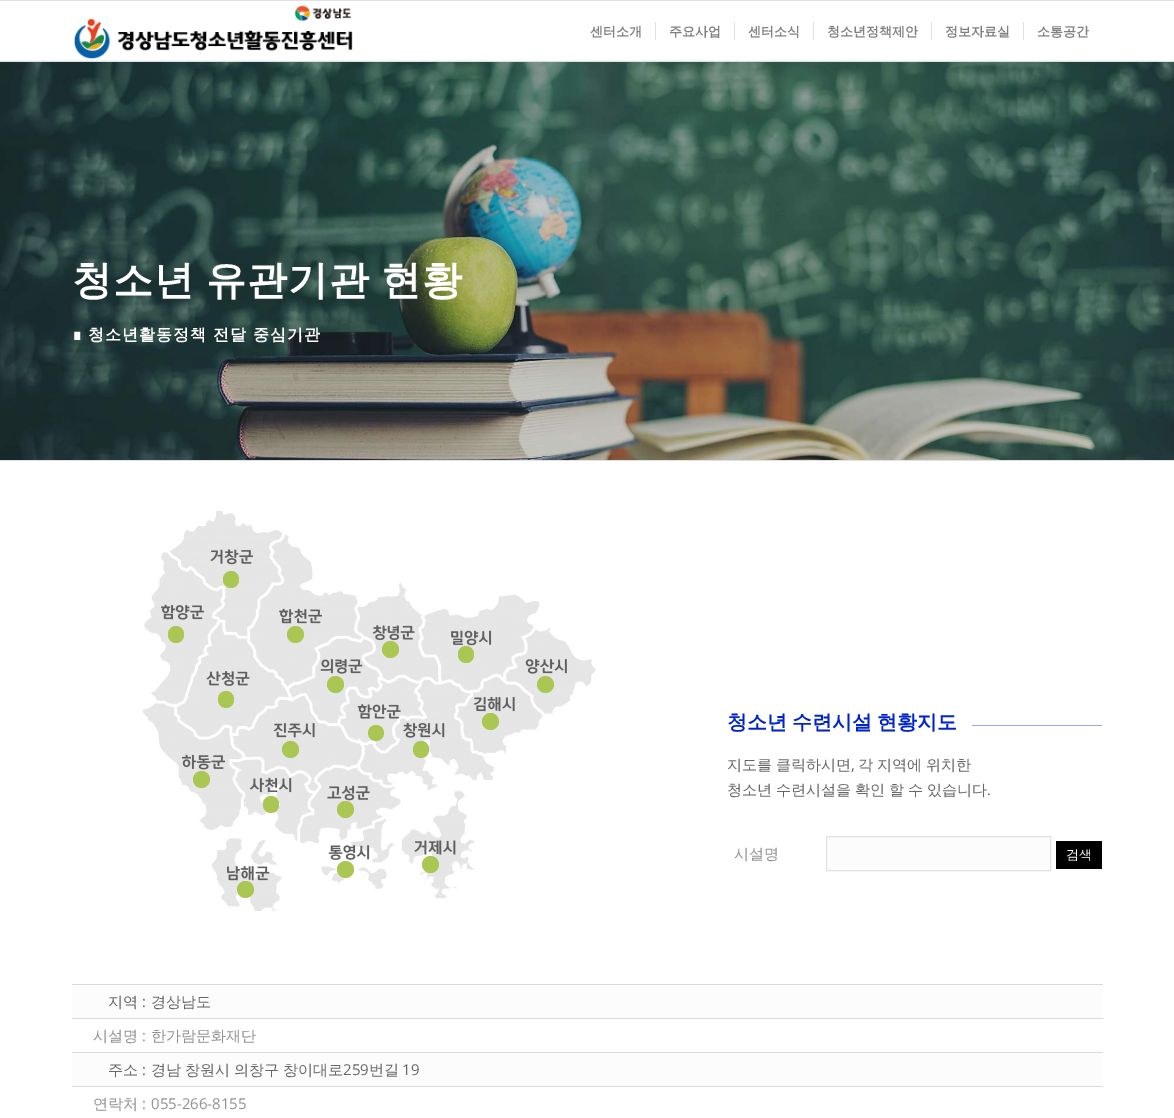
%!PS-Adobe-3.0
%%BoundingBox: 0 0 1174 1118
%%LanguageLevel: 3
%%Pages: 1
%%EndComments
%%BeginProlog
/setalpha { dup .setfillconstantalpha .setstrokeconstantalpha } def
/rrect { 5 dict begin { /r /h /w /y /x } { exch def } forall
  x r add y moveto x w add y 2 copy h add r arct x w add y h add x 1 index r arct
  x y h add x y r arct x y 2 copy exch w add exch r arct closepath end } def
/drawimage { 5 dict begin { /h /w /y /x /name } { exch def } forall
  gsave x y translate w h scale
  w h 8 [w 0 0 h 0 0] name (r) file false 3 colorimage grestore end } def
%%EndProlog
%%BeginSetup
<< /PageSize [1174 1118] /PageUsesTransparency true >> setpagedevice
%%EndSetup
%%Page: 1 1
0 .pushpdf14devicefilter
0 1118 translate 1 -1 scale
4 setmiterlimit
1 setgray
0 0 1174 1118 rectfill
0.882 setgray
0 0 1174 1 rectfill
(images/2.raw) 0 60 1174 400 drawimage
0 61 1174 1 rectfill
(images/1.raw) 74 5 279 54 drawimage
655 22 1 18 rectfill
734 22 1 18 rectfill
813 22 1 18 rectfill
931 22 1 18 rectfill
1023 22 1 18 rectfill
0.95 setalpha
1 setgray
0 60 1174 1 rectfill
1 setalpha
0.882 setgray
0 460 1174 1 rectfill
(images/3.raw) 142 511 454 400 drawimage
0.667 0.776 0.325 setrgbcolor
223 571 16 17 8 rrect fill
168 626 16 17 8 rrect fill
newpath 295.5 634.5 8.5 0 360 arc closepath fill
newpath 390.5 649.5 8.5 0 360 arc closepath fill
458 646 16 17 8 rrect fill
newpath 335.5 684.5 8.5 0 360 arc closepath fill
newpath 545.5 684.5 8.5 0 360 arc closepath fill
218 691 16 17 8 rrect fill
newpath 490.5 721.5 8.5 0 360 arc closepath fill
newpath 376 733 8 0 360 arc closepath fill
newpath 290.5 749.5 8.5 0 360 arc closepath fill
413 741 16 17 8 rrect fill
newpath 201.5 779.5 8.5 0 360 arc closepath fill
263 796 16 17 8 rrect fill
newpath 345.5 809.5 8.5 0 360 arc closepath fill
newpath 345.5 869.5 8.5 0 360 arc closepath fill
newpath 430.5 864.5 8.5 0 360 arc closepath fill
newpath 245.5 889.5 8.5 0 360 arc closepath fill
0.6 0.655 0.914 setrgbcolor
972 725 130 1 rectfill
0.988 setgray
newpath 826.5 836.5 moveto 1050.5 836.5 lineto 1050.5 870.5 lineto 826.5 870.5 lineto closepath gsave fill grestore
0.882 setgray
stroke
0 setgray
1056 841 46 28 rectfill
0.988 setgray
72 985 1030 101 rectfill
0.859 0.855 0.855 setrgbcolor
72 984 1031 1 rectfill
72 1018 1031 1 rectfill
1 setgray
72 1019 1030 33 rectfill
0.859 0.855 0.855 setrgbcolor
72 1052 1031 1 rectfill
72 1086 1031 1 rectfill
/WenQuanYiZenHei-Bold [13 0 0 -13 0 0] selectfont
0.502 setgray
590 36 moveto (센터소개) show
669 36 moveto (주요사업) show
748 36 moveto (센터소식) show
827 36 moveto (청소년정책제안) show
945 36 moveto (정보자료실) show
1037 36 moveto (소통공간) show
/WenQuanYiZenHei-Bold [40 0 0 -40 0 0] selectfont
1 setgray
72 294 moveto -2 0 32 1 0 (청소년 유관기관 현황) awidthshow
/DejaVuSans-Bold [16 0 0 -16 0 0] selectfont
72 340 moveto 1 0 (∎) ashow
/WenQuanYiZenHei-Bold [16 0 0 -16 0 0] selectfont
88 340 moveto 1 0 (청소년활동정책 전달 중심기관) ashow
/WenQuanYiZenHei-Bold [20 0 0 -20 0 0] selectfont
0 0.141 0.788 setrgbcolor
727 729 moveto -1 0 32 (청소년 수련시설 현황지도) widthshow
/WenQuanYiZenHei-Medium [15 0 0 -15 0 0] selectfont
0.4 setgray
727 770 moveto -0.5 0 32 (지도를 클릭하시면) widthshow
/OpenSans-Regular [15 0 0 -15 0 0] selectfont
851 770 moveto (,) show
/WenQuanYiZenHei-Medium [15 0 0 -15 0 0] selectfont
858 770 moveto -0.5 0 32 (각 지역에 위치한) widthshow
727 795 moveto -0.5 0 32 (청소년 수련시설을 확인 할 수 있습니다) widthshow
/OpenSans-Regular [15 0 0 -15 0 0] selectfont
987 795 moveto (.) show
/WenQuanYiZenHei-Medium [15 0 0 -15 0 0] selectfont
0.569 setgray
734 859 moveto (시설명) show
/WenQuanYiZenHei-Medium [13 0 0 -13 0 0] selectfont
1 setgray
1066 859 moveto (검색) show
/WenQuanYiZenHei-Medium [15 0 0 -15 0 0] selectfont
0.4 setgray
108 1007 moveto (지역) show
/OpenSans-Regular [15 0 0 -15 0 0] selectfont
142 1007 moveto (:) show
/WenQuanYiZenHei-Medium [15 0 0 -15 0 0] selectfont
151 1007 moveto (경상남도) show
0.569 setgray
93 1041 moveto (시설명) show
/OpenSans-Regular [15 0 0 -15 0 0] selectfont
142 1041 moveto (:) show
/WenQuanYiZenHei-Medium [15 0 0 -15 0 0] selectfont
151 1041 moveto (한가람문화재단) show
0.4 setgray
108 1075 moveto (주소) show
/OpenSans-Regular [15 0 0 -15 0 0] selectfont
142 1075 moveto (:) show
/WenQuanYiZenHei-Medium [15 0 0 -15 0 0] selectfont
151 1075 moveto -0.5 0 32 (경남 창원시 의창구 창이대로) widthshow
/OpenSans-Regular [15 0 0 -15 0 0] selectfont
343 1075 moveto (259) show
/WenQuanYiZenHei-Medium [15 0 0 -15 0 0] selectfont
369 1075 moveto (번길) show
/OpenSans-Regular [15 0 0 -15 0 0] selectfont
402 1075 moveto (19) show
/WenQuanYiZenHei-Medium [15 0 0 -15 0 0] selectfont
0.569 setgray
93 1109 moveto (연락처) show
/OpenSans-Regular [15 0 0 -15 0 0] selectfont
142 1109 moveto (:) show
151 1109 moveto (055-266-8155) show
.poppdf14devicefilter showpage
%%EOF
